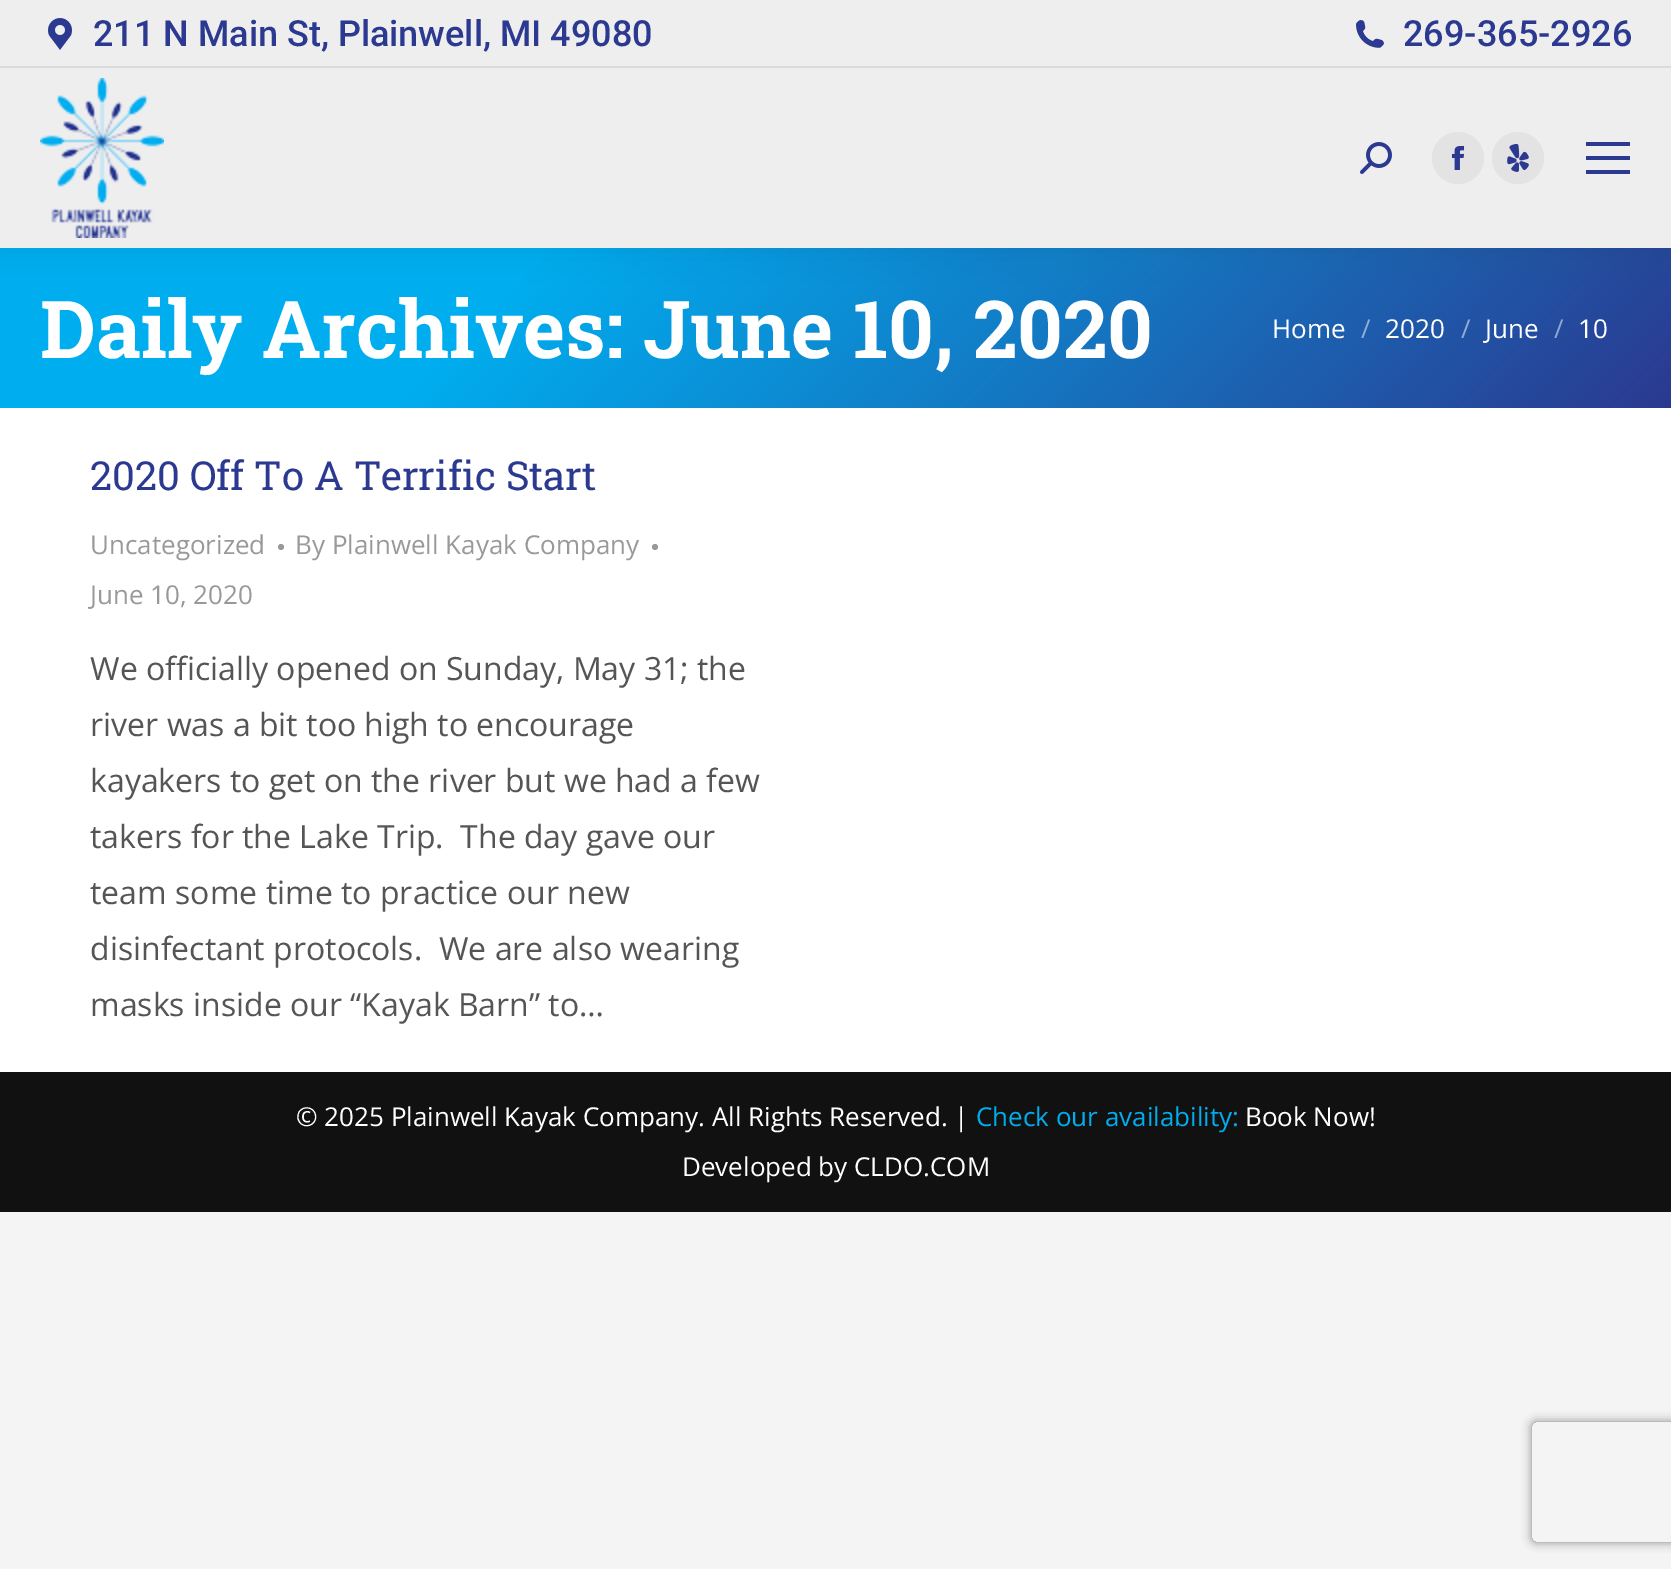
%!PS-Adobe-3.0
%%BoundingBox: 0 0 1671 1569
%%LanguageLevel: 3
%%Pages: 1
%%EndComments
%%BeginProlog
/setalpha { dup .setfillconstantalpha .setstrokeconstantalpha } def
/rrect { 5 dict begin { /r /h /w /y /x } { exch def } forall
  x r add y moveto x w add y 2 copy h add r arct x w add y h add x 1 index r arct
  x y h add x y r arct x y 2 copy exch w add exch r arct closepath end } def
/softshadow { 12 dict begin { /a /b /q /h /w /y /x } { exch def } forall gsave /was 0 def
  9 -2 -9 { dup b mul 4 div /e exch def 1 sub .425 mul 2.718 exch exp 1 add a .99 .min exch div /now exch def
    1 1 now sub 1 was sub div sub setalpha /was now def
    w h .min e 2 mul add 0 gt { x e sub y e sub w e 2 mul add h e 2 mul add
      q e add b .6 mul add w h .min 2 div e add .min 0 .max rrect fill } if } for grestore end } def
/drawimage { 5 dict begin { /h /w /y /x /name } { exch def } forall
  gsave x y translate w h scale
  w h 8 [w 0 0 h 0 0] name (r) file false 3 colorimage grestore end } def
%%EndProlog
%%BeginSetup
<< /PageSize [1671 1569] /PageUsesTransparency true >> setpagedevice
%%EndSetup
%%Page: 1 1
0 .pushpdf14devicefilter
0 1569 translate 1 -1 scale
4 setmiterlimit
0.957 setgray
0 0 1671 1569 rectfill
1 setgray
0 408 1671 664 rectfill
gsave newpath 0 248 moveto 1671 248 lineto 1671 408 lineto 0 408 lineto closepath clip newpath
<< /ShadingType 2 /ColorSpace /DeviceRGB /Coords [378 -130 1294 786] /Extend [true true] /Function << /FunctionType 3 /Domain [0 1] /Functions [<< /FunctionType 2 /Domain [0 1] /C0 [0 0.682 0.937] /C1 [0 0.682 0.937] /N 1 >> << /FunctionType 2 /Domain [0 1] /C0 [0 0.682 0.937] /C1 [0.169 0.224 0.565] /N 1 >>] /Bounds [0.3] /Encode [0 1 0 1] >> >> shfill grestore
0 setgray
-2 -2 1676 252 0 15 0.07 softshadow
0.933 setgray
0 0 1671 248 rectfill
(images/1.raw) 48 18 24 32 drawimage
(images/2.raw) 1356 20 28 28 drawimage
0.859 0.859 0.867 setrgbcolor
0 66 1671 2 rectfill
(images/3.raw) 40 78 124 160 drawimage
(images/4.raw) 1360 142 32 32 drawimage
0.89 0.89 0.894 setrgbcolor
newpath 1458 158 26 0 360 arc closepath fill
(images/5.raw) 1451 146 14 24 drawimage
newpath 1518 158 26 0 360 arc closepath fill
(images/6.raw) 1507 143 22 29 drawimage
0.169 0.224 0.565 setrgbcolor
1586 142 44 4 rectfill
1586 156 44 4 rectfill
1586 170 44 4 rectfill
0.6 setgray
newpath 281 547 3 0 360 arc closepath fill
newpath 655 547 3 0 360 arc closepath fill
0.067 setgray
0 1072 1671 140 rectfill
gsave
newpath 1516 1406 moveto 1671 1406 lineto 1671 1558 lineto 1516 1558 lineto closepath 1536 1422 moveto 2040 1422 lineto 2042 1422 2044 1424 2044 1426 curveto 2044 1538 lineto 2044 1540 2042 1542 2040 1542 curveto 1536 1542 lineto 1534 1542 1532 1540 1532 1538 curveto 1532 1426 lineto 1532 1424 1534 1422 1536 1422 curveto closepath eoclip newpath
0.502 setgray
1532 1422 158 120 4 5 1 softshadow
grestore
/Roboto-Medium [36 0 0 -36 0 0] selectfont
0.169 0.224 0.565 setrgbcolor
93 46 moveto (211 N Main St, Plainwell, MI 49080) show
1403 46 moveto (269-365-2926) show
/RobotoSlab-Bold [80 0 0 -80 0 0] selectfont
1 setgray
40 358 moveto (Daily Archives: June 10, 2020) show
/OpenSans-Regular [26 0 0 -26 0 0] selectfont
1272 338 moveto (Home) show
0.561 0.682 0.839 setrgbcolor
1361 338 moveto (/) show
1 setgray
1385 338 moveto (2020) show
0.561 0.682 0.839 setrgbcolor
1461 338 moveto (/) show
1 setgray
1485 338 moveto (June) show
0.573 0.647 0.812 setrgbcolor
1554 338 moveto (/) show
1 setgray
1578 338 moveto (10) show
/RobotoSlab-Regular [40 0 0 -40 0 0] selectfont
0.169 0.224 0.565 setrgbcolor
90 490 moveto (2020 Off To A Terrific Start) show
/OpenSans-Regular [26 0 0 -26 0 0] selectfont
0.6 setgray
90 554 moveto (Uncategorized) show
295 554 moveto (By Plainwell Kayak Company) show
90 604 moveto (June 10, 2020) show
/OpenSans-Regular [32 0 0 -32 0 0] selectfont
0.333 setgray
90 680 moveto (We officially opened on Sunday, May 31; the) show
90 736 moveto (river was a bit too high to encourage) show
90 792 moveto (kayakers to get on the river but we had a few) show
90 848 moveto (takers for the Lake Trip.  The day gave our) show
90 904 moveto (team some time to practice our new) show
90 960 moveto (disinfectant protocols.  We are also wearing) show
90 1016 moveto (masks inside our “Kayak Barn” to…) show
/OpenSans-Regular [26 0 0 -26 0 0] selectfont
1 setgray
296 1126 moveto (© 2025 Plainwell Kayak Company. All Rights Reserved. |) show
0 0.682 0.937 setrgbcolor
976 1126 moveto (Check our availability:) show
1 setgray
1245 1126 moveto (Book Now!) show
682 1176 moveto (Developed by CLDO.COM) show
.poppdf14devicefilter showpage
%%EOF
